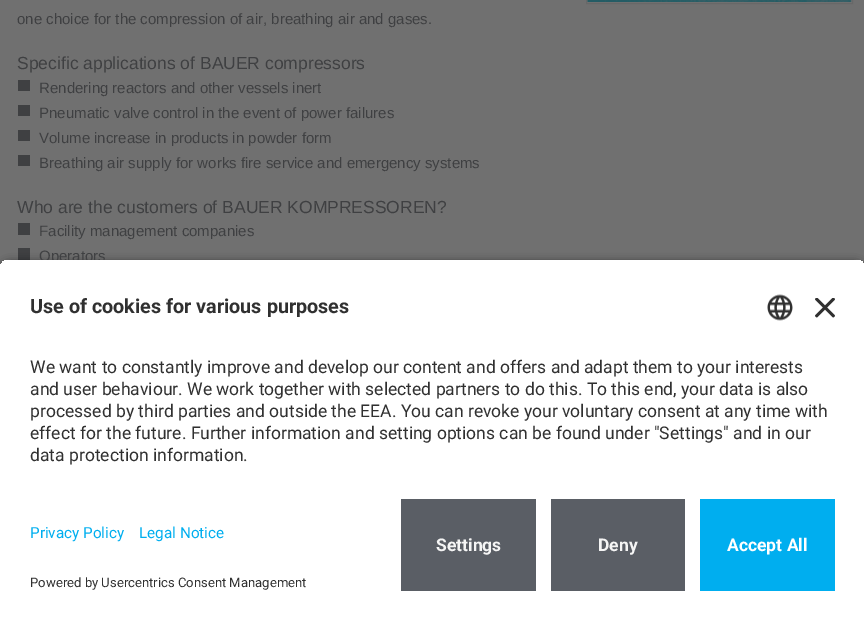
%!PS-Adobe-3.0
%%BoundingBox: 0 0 864 621
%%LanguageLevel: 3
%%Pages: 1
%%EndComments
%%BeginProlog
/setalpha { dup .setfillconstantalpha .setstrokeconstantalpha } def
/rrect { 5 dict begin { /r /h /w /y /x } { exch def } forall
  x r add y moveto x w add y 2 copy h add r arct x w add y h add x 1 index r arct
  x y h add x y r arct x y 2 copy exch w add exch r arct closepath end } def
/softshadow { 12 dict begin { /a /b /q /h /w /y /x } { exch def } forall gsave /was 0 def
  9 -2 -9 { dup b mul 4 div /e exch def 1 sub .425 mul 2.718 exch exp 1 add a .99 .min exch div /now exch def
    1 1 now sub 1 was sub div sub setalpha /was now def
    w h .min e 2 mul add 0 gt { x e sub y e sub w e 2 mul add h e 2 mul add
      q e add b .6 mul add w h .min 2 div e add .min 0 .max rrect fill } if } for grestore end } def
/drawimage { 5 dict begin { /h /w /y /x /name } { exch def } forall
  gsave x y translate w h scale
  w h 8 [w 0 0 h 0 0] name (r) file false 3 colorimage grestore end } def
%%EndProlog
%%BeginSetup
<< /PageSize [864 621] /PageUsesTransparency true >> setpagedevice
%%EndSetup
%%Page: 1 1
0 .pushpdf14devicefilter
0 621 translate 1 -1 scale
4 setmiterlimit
0.439 setgray
0 0 864 621 rectfill
0.408 setgray
586.5 -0.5 266 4 rectstroke
(images/1.raw) 587 0 265 2 drawimage
0.247 0.251 0.259 setrgbcolor
18 80 12 11 rectfill
18 105 12 11 rectfill
18 130 12 11 rectfill
18 155 12 11 rectfill
18 223 12 12 rectfill
18 248 12 12 rectfill
0 setgray
0 263 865 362 10 4.5 0.8 softshadow
1 setgray
0 489 864 132 rectfill
0.353 0.369 0.396 setrgbcolor
401 499 135 92 rectfill
551 499 134 92 rectfill
0 0.682 0.937 setrgbcolor
700 499 135 92 rectfill
/LiberationSans-Regular [15 0 0 -15 0 0] selectfont
0.247 0.251 0.259 setrgbcolor
17 24 moveto (one choice for the compression of air, breathing air and gases.) show
/LiberationSans-Regular [17.5 0 0 -17.5 0 0] selectfont
17 69 moveto (Specific applications of BAUER compressors) show
/LiberationSans-Regular [15 0 0 -15 0 0] selectfont
39 93 moveto (Rendering reactors and other vessels inert) show
39 118 moveto (Pneumatic valve control in the event of power failures) show
39 143 moveto (Volume increase in products in powder form) show
39 168 moveto (Breathing air supply for works fire service and emergency systems) show
/LiberationSans-Regular [17.5 0 0 -17.5 0 0] selectfont
17 213 moveto (Who are the customers of BAUER KOMPRESSOREN?) show
/LiberationSans-Regular [15 0 0 -15 0 0] selectfont
39 236 moveto (Facility management companies) show
39 261 moveto (Operators) show
gsave
newpath 10 259 moveto 855 259 lineto 860.5 259 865 263.5 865 269 curveto 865 489 lineto 0 489 lineto 0 269 lineto 0 263.5 4.5 259 10 259 curveto closepath clip newpath
1 setgray
0 260 864 229 rectfill
grestore
/Roboto-Bold [19.75 0 0 -19.75 0 0] selectfont
0.188 setgray
30 313 moveto (Use of cookies for various purposes) show
(images/2.raw) 767 294 26 27 drawimage
(images/3.raw) 815 298 20 20 drawimage
/Roboto-Regular [17.5 0 0 -17.5 0 0] selectfont
30 373 moveto (We want to constantly improve and develop our content and offers and adapt them to your interests) show
30 395 moveto (and user behaviour. We work together with selected partners to do this. To this end, your data is also) show
30 417 moveto (processed by third parties and outside the EEA. You can revoke your voluntary consent at any time with) show
30 439 moveto (effect for the future. Further information and setting options can be found under "Settings" and in our) show
30 461 moveto (data protection information.) show
/Roboto-Regular [15.25 0 0 -15.25 0 0] selectfont
0 0.682 0.937 setrgbcolor
30 538 moveto (Privacy Policy) show
139 538 moveto (Legal Notice) show
/Roboto-Regular [13.1 0 0 -13.1 0 0] selectfont
0.188 setgray
30 587 moveto (Powered by Usercentrics Consent Management) show
/Roboto-Bold [17.5 0 0 -17.5 0 0] selectfont
0.961 setgray
436 551 moveto (Settings) show
598 551 moveto (Deny) show
1 setgray
727 551 moveto (Accept All) show
.poppdf14devicefilter showpage
%%EOF
